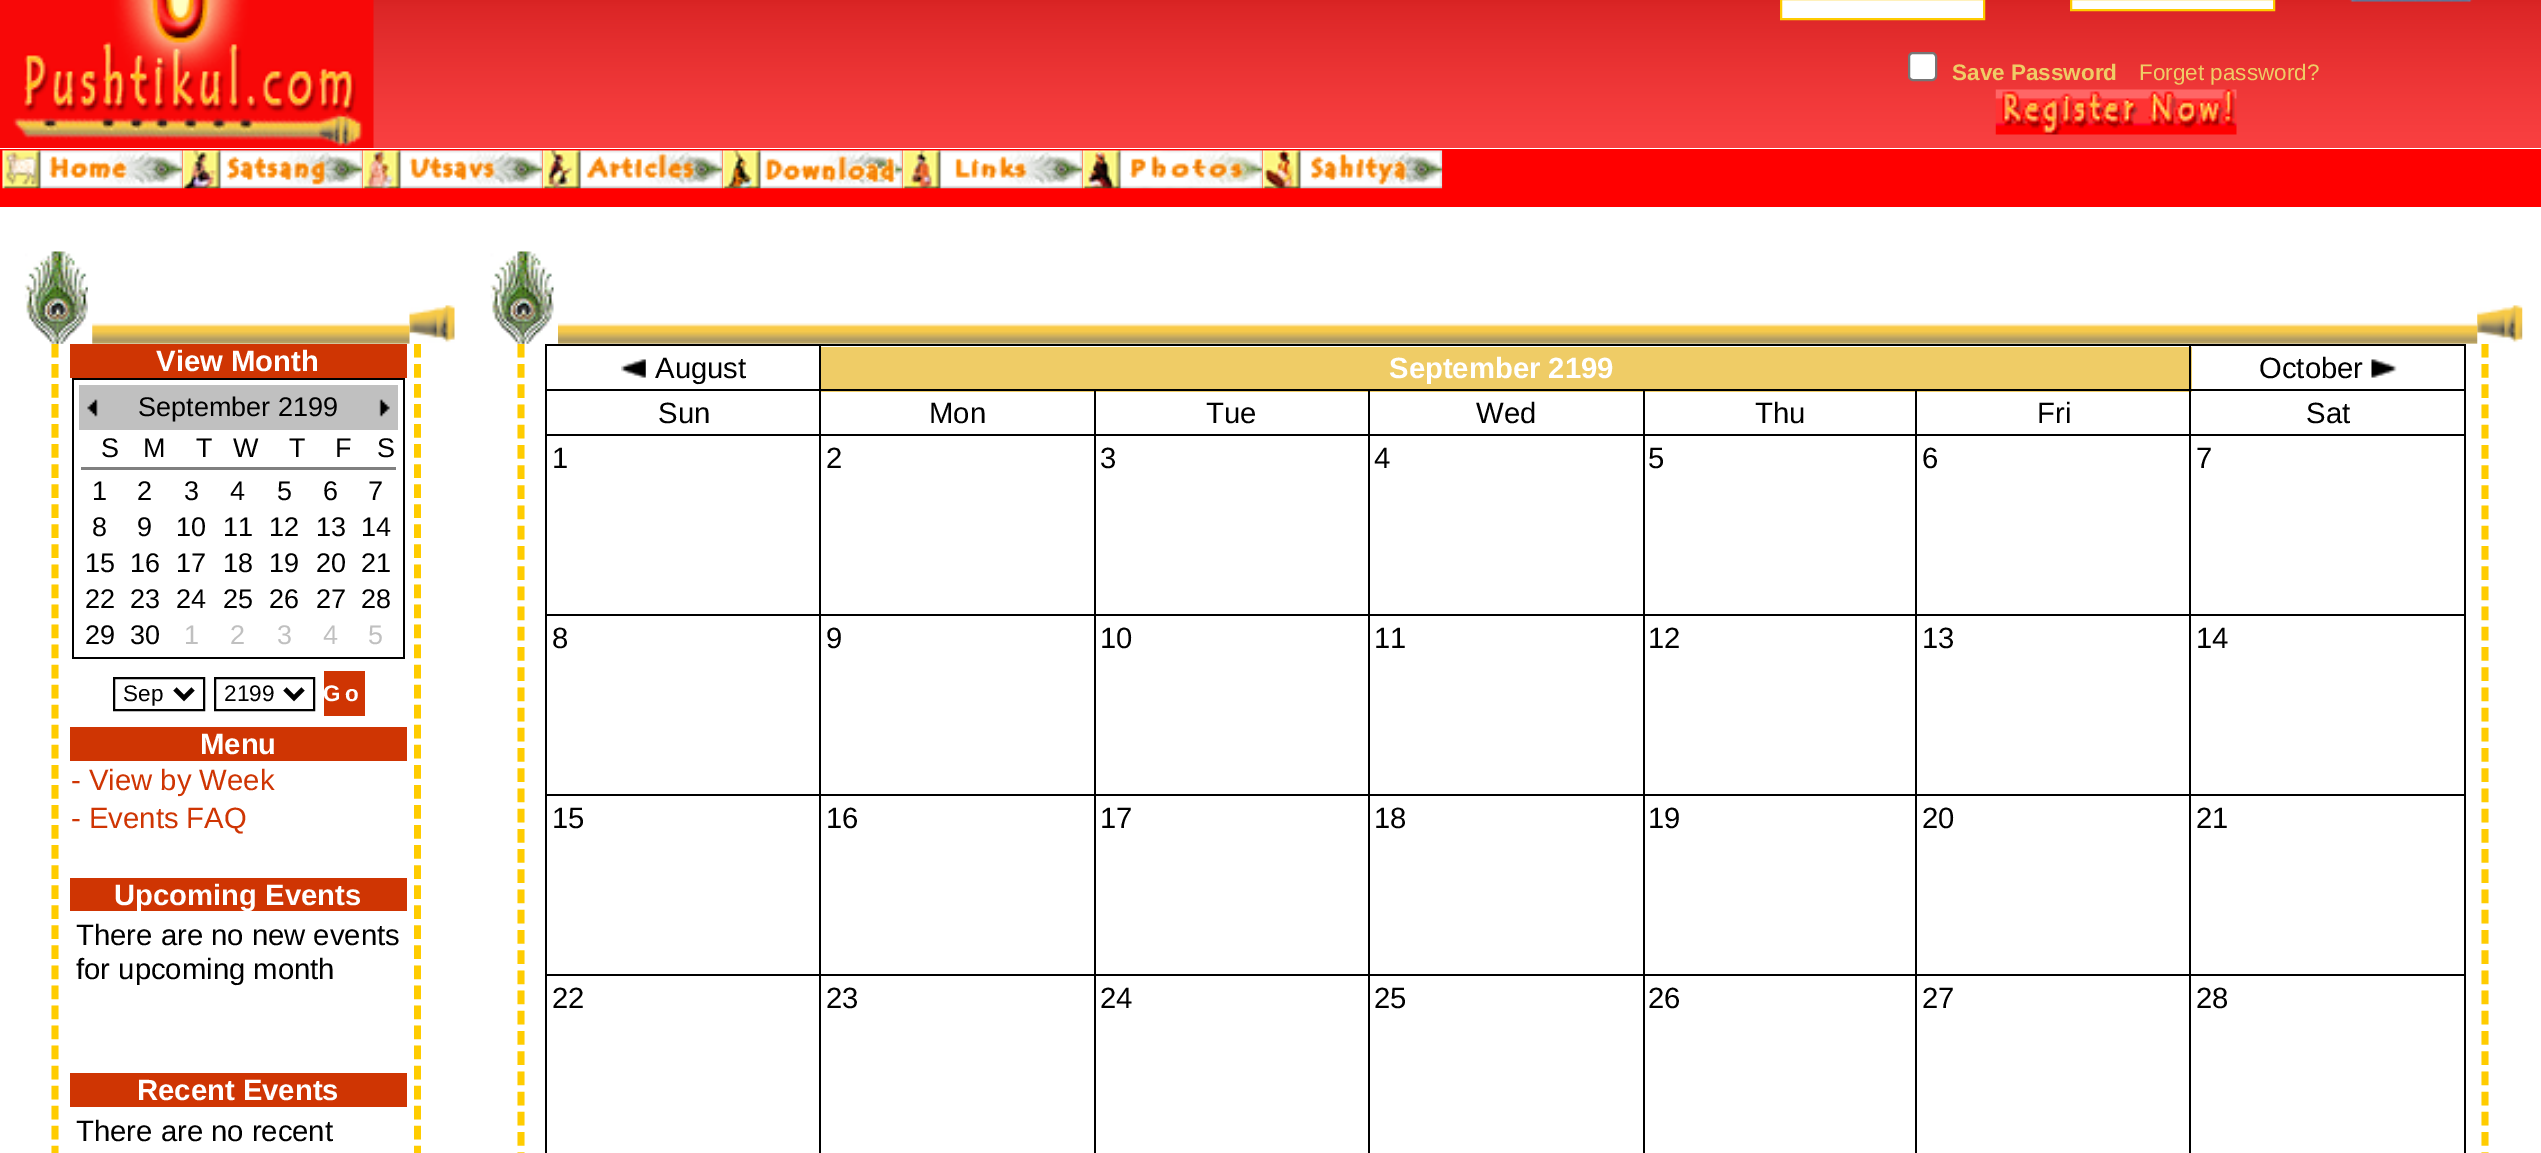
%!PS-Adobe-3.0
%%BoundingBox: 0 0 2541 1153
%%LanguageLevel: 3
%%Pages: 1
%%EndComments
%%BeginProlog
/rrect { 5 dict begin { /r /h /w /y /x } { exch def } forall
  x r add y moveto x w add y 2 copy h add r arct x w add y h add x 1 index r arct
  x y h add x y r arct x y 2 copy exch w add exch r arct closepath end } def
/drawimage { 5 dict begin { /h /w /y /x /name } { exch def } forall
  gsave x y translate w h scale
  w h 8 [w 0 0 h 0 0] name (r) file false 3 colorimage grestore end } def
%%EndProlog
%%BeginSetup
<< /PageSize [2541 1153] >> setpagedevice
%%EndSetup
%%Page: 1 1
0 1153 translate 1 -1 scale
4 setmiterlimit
1 setgray
0 0 2541 1153 rectfill
(images/1.raw) 373 0 2168 148 drawimage
(images/2.raw) 0 0 374 148 drawimage
newpath 1781 -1 moveto 1984 -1 lineto 1984 19 lineto 1781 19 lineto closepath gsave fill grestore
1 0.8 0 setrgbcolor
2 setlinewidth
stroke
1 setgray
newpath 2071 -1 moveto 2274 -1 lineto 2274 10 lineto 2071 10 lineto closepath gsave fill grestore
1 0.8 0 setrgbcolor
stroke
(images/3.raw) 2349 0 124 2 drawimage
1 setgray
1909 53 27 27 4 rrect gsave fill grestore
0.463 setgray
stroke
(images/4.raw) 1995 89 242 46 drawimage
1 0 0 setrgbcolor
0 149 2541 58 rectfill
(images/5.raw) 409 305 46 38 drawimage
(images/6.raw) 24 251 64 93 drawimage
(images/7.raw) 92 323 318 21 drawimage
1 0.8 0 setrgbcolor
6.8 setlinewidth
[13.5 6.55] 0 setdash
newpath 417.5 344 moveto 417.5 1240 lineto stroke
newpath 55 344 moveto 55 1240 lineto stroke
0.812 0.208 0.012 setrgbcolor
70 344 337 34 rectfill
0 setgray
72 378 333 2 rectfill
403 378 2 281 rectfill
72 657 333 2 rectfill
72 378 2 281 rectfill
0.753 setgray
79 385 319 45 rectfill
(images/8.raw) 87 399 11 18 drawimage
(images/9.raw) 379 399 11 18 drawimage
0.502 setgray
81 467 315 3 rectfill
0 setgray
2 setlinewidth
[] 0 setdash
114 678 90 32 rectstroke
4.5 setlinewidth
newpath 175 689 moveto 184 698 lineto 193 689 lineto stroke
2 setlinewidth
215 678 99 32 rectstroke
4.5 setlinewidth
newpath 285 689 moveto 294 698 lineto 303 689 lineto stroke
0.812 0.208 0.012 setrgbcolor
324 671 41 45 rectfill
70 727 337 34 rectfill
70 878 337 33 rectfill
70 1073 337 34 rectfill
(images/10.raw) 2477 305 46 38 drawimage
(images/11.raw) 490 251 64 93 drawimage
(images/12.raw) 558 323 1920 21 drawimage
1 0.8 0 setrgbcolor
6.8 setlinewidth
[13.5 6.71] 0 setdash
newpath 2485 344 moveto 2485 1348 lineto stroke
newpath 521 344 moveto 521 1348 lineto stroke
0 setgray
545 344 1921 2 rectfill
2464 344 2 809 rectfill
545 344 2 809 rectfill
(images/13.raw) 621 359 25 19 drawimage
0.937 0.8 0.4 setrgbcolor
821 347 1371 45 rectfill
0 setgray
2189 389 277 2 rectfill
2189 434 277 2 rectfill
2189 614 277 2 rectfill
2189 794 277 2 rectfill
2189 974 277 2 rectfill
2189 974 2 179 rectfill
1915 974 277 2 rectfill
2189 794 2 183 rectfill
1915 794 277 2 rectfill
2189 614 2 183 rectfill
1915 614 277 2 rectfill
2189 434 2 183 rectfill
1915 434 277 2 rectfill
2189 389 2 48 rectfill
1915 389 277 2 rectfill
1915 974 2 179 rectfill
1643 974 274 2 rectfill
1915 794 2 183 rectfill
1643 794 274 2 rectfill
1915 614 2 183 rectfill
1643 614 274 2 rectfill
1915 434 2 183 rectfill
1643 434 274 2 rectfill
1915 389 2 48 rectfill
1643 389 274 2 rectfill
1643 974 2 179 rectfill
1368 974 277 2 rectfill
1643 794 2 183 rectfill
1368 794 277 2 rectfill
1643 614 2 183 rectfill
1368 614 277 2 rectfill
1643 434 2 183 rectfill
1368 434 277 2 rectfill
1643 389 2 48 rectfill
1368 389 277 2 rectfill
1368 974 2 179 rectfill
1094 974 276 2 rectfill
1368 794 2 183 rectfill
1094 794 276 2 rectfill
1368 614 2 183 rectfill
1094 614 276 2 rectfill
1368 434 2 183 rectfill
1094 434 276 2 rectfill
1368 389 2 48 rectfill
1094 389 276 2 rectfill
1094 974 2 179 rectfill
819 974 277 2 rectfill
1094 794 2 183 rectfill
819 794 277 2 rectfill
1094 614 2 183 rectfill
819 614 277 2 rectfill
1094 434 2 183 rectfill
819 434 277 2 rectfill
1094 389 2 48 rectfill
819 389 277 2 rectfill
819 974 2 179 rectfill
545 974 276 2 rectfill
819 794 2 183 rectfill
545 794 276 2 rectfill
819 614 2 183 rectfill
545 614 276 2 rectfill
819 434 2 183 rectfill
545 434 276 2 rectfill
819 389 2 48 rectfill
545 389 276 2 rectfill
819 344 2 48 rectfill
2189 344 2 48 rectfill
(images/14.raw) 2371 359 26 19 drawimage
(images/15.raw) 2 150 181 39 drawimage
1 0 0 setrgbcolor
182 151 1 38 rectfill
(images/16.raw) 182 150 181 39 drawimage
362 151 1 38 rectfill
(images/17.raw) 362 150 181 39 drawimage
542 151 1 38 rectfill
(images/18.raw) 542 150 181 39 drawimage
722 151 1 38 rectfill
(images/19.raw) 722 150 181 39 drawimage
902 151 1 38 rectfill
(images/20.raw) 902 150 181 39 drawimage
1082 151 1 38 rectfill
(images/21.raw) 1082 150 181 39 drawimage
1262 151 1 38 rectfill
(images/22.raw) 1262 150 181 39 drawimage
/LiberationSans-Bold [22.5 0 0 -22.5 0 0] selectfont
0.937 0.8 0.4 setrgbcolor
1952 80 moveto (Save Password) show
/LiberationSans-Regular [22.5 0 0 -22.5 0 0] selectfont
2139 80 moveto (Forget password?) show
/LiberationSans-Bold [29.25 0 0 -29.25 0 0] selectfont
1 setgray
156 371 moveto (View Month) show
/LiberationSans-Regular [27 0 0 -27 0 0] selectfont
0 setgray
138 416 moveto (September 2199) show
101 457 moveto (S) show
143 457 moveto (M) show
196 457 moveto (T) show
233 457 moveto (W) show
289 457 moveto (T) show
335 457 moveto (F) show
377 457 moveto (S) show
92 500 moveto (1) show
137 500 moveto (2) show
184 500 moveto (3) show
230 500 moveto (4) show
277 500 moveto (5) show
323 500 moveto (6) show
368 500 moveto (7) show
92 536 moveto (8) show
137 536 moveto (9) show
176 536 moveto (10) show
223 536 moveto (11) show
269 536 moveto (12) show
316 536 moveto (13) show
361 536 moveto (14) show
85 572 moveto (15) show
130 572 moveto (16) show
176 572 moveto (17) show
223 572 moveto (18) show
269 572 moveto (19) show
316 572 moveto (20) show
361 572 moveto (21) show
85 608 moveto (22) show
130 608 moveto (23) show
176 608 moveto (24) show
223 608 moveto (25) show
269 608 moveto (26) show
316 608 moveto (27) show
361 608 moveto (28) show
85 644 moveto (29) show
130 644 moveto (30) show
0.753 setgray
184 644 moveto (1) show
230 644 moveto (2) show
277 644 moveto (3) show
323 644 moveto (4) show
368 644 moveto (5) show
/LiberationSans-Regular [22.5 0 0 -22.5 0 0] selectfont
0 setgray
123 701 moveto (Sep) show
224 701 moveto (2199) show
/LiberationSans-Bold [22.5 0 0 -22.5 0 0] selectfont
1 setgray
323 701 moveto 4 0 (Go) ashow
/LiberationSans-Bold [29.25 0 0 -29.25 0 0] selectfont
200 754 moveto (Menu) show
/LiberationSans-Regular [29.25 0 0 -29.25 0 0] selectfont
0.812 0.208 0.012 setrgbcolor
71 790 moveto (- View by Week) show
71 828 moveto (- Events FAQ) show
/LiberationSans-Bold [29.25 0 0 -29.25 0 0] selectfont
1 setgray
114 905 moveto (Upcoming Events) show
/LiberationSans-Regular [29.25 0 0 -29.25 0 0] selectfont
0 setgray
76 945 moveto (There are no new events) show
76 979 moveto (for upcoming month) show
/LiberationSans-Bold [29.25 0 0 -29.25 0 0] selectfont
1 setgray
137 1100 moveto (Recent Events) show
/LiberationSans-Regular [29.25 0 0 -29.25 0 0] selectfont
0 setgray
76 1141 moveto (There are no recent) show
655 378 moveto (August) show
/LiberationSans-Bold [29.25 0 0 -29.25 0 0] selectfont
1 setgray
1389 378 moveto (September 2199) show
/LiberationSans-Regular [29.25 0 0 -29.25 0 0] selectfont
0 setgray
2259 378 moveto (October) show
658 423 moveto (Sun) show
929 423 moveto (Mon) show
1206 423 moveto (Tue) show
1476 423 moveto (Wed) show
1755 423 moveto (Thu) show
2037 423 moveto (Fri) show
2306 423 moveto (Sat) show
552 468 moveto (1) show
826 468 moveto (2) show
1100 468 moveto (3) show
1374 468 moveto (4) show
1648 468 moveto (5) show
1922 468 moveto (6) show
2196 468 moveto (7) show
552 648 moveto (8) show
826 648 moveto (9) show
1100 648 moveto (10) show
1374 648 moveto (11) show
1648 648 moveto (12) show
1922 648 moveto (13) show
2196 648 moveto (14) show
552 828 moveto (15) show
826 828 moveto (16) show
1100 828 moveto (17) show
1374 828 moveto (18) show
1648 828 moveto (19) show
1922 828 moveto (20) show
2196 828 moveto (21) show
552 1008 moveto (22) show
826 1008 moveto (23) show
1100 1008 moveto (24) show
1374 1008 moveto (25) show
1648 1008 moveto (26) show
1922 1008 moveto (27) show
2196 1008 moveto (28) show
showpage
%%EOF
